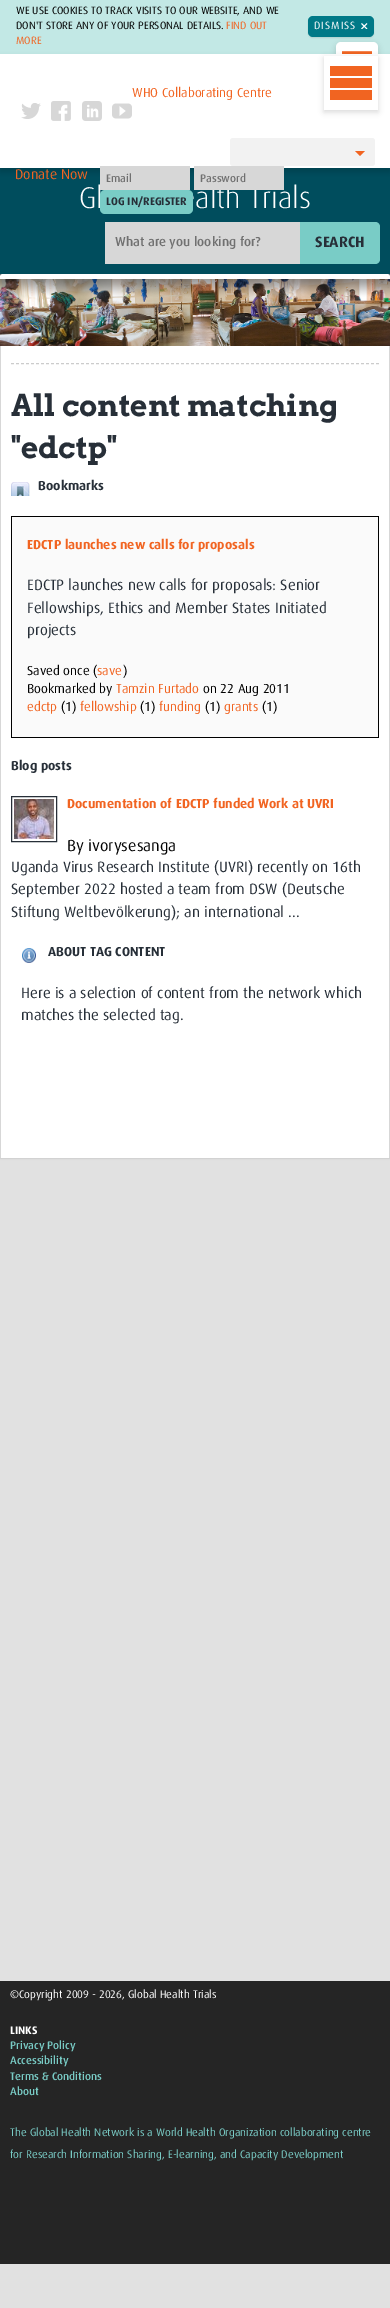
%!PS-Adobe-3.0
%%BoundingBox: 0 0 390 2308
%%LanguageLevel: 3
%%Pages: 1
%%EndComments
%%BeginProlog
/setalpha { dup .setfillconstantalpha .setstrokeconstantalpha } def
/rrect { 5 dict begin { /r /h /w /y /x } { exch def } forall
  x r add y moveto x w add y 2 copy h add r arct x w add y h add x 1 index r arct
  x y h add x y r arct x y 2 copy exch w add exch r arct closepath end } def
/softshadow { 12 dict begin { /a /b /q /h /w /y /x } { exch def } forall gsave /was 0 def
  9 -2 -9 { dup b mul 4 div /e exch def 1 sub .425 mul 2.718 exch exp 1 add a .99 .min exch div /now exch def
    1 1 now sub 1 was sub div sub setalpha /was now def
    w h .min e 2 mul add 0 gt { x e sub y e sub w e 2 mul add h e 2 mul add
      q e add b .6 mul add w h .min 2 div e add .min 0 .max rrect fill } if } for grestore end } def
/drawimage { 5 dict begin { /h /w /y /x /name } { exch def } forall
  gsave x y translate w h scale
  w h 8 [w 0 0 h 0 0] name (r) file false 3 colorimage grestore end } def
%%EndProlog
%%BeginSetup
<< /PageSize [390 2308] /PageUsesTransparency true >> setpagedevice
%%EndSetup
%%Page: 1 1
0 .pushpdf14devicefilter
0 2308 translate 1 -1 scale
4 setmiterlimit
0.882 setgray
0 0 390 2308 rectfill
0.761 0.91 0.898 setrgbcolor
0 0 390 54 rectfill
0.051 0.075 0.078 setrgbcolor
308 17 66 21 5 0.5 0.1 softshadow
0 0.475 0.529 setrgbcolor
308 16 66 21 5 rrect fill
(images/1.raw) 361 23 7 6 drawimage
0 0.302 0.365 setrgbcolor
0 168 390 106 rectfill
0 setgray
336 44 42 42 5 3 0.15 softshadow
1 setgray
336 42 42 42 5 rrect fill
(images/6.raw) 342 51 30 3 drawimage
0 setgray
0 58 390 114 0 3 0.15 softshadow
1 setgray
0 54 390 114 rectfill
(images/2.raw) 21 103 20 16 drawimage
(images/3.raw) 51 101 20 20 drawimage
(images/4.raw) 82 101 20 20 drawimage
(images/5.raw) 112 103 20 16 drawimage
0.949 setgray
230 138 145 28 3 rrect fill
0.945 0.392 0.129 setrgbcolor
newpath 355 151 moveto 365 151 lineto 360 156 lineto closepath fill
gsave
newpath 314 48 moveto 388 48 lineto 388 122 lineto 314 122 lineto closepath 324 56 moveto 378 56 lineto 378 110 lineto 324 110 lineto closepath eoclip newpath
0 setgray
324 58 54 54 0 3 0.15 softshadow
grestore
newpath 330 66 moveto 372 66 lineto 372 76 lineto 330 76 lineto closepath 330 78 moveto 372 78 lineto 372 88 lineto 330 88 lineto closepath 330 90 moveto 372 90 lineto 372 100 lineto 330 100 lineto closepath fill
0.843 setgray
105 222 195 42 rectfill
0.475 0.8 0.776 setrgbcolor
newpath 300 222 moveto 375 222 lineto 378 222 380 224 380 227 curveto 380 259 lineto 380 262 378 264 375 264 curveto 300 264 lineto closepath fill
0.443 0.463 0.486 setrgbcolor
0 274 390 3 rectfill
1 setgray
newpath 3 274 moveto 387 274 lineto 388.5 274 390 275.5 390 277 curveto 390 279 lineto 0 279 lineto 0 277 lineto 0 275.5 1.5 274 3 274 curveto closepath fill
0 setgray
0 346 390 812 0 1 0.2 softshadow
(images/7.raw) 0 279 390 67 drawimage
1 setgray
1 346 388 812 rectfill
0.843 setgray
389 346 1 812 rectfill
0 346 1 812 rectfill
0.8 setgray
[3 2] 0 setdash
newpath 11 363.5 moveto 379 363.5 lineto stroke
(images/8.raw) 11 482 19 14 drawimage
0.98 setgray
12 517 366 220 rectfill
0 setgray
11 516 368 1 rectfill
378 516 1 222 rectfill
11 737 368 1 rectfill
11 516 1 222 rectfill
0.153 0.184 0.22 setrgbcolor
[] 0 setdash
11.5 796.5 45 45 rectstroke
(images/9.raw) 14 799 40 40 drawimage
(images/10.raw) 22 948 14 15 drawimage
0.145 setgray
0 1981 390 283 rectfill
/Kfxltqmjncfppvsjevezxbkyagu-Regular [10.7 0 0 -10.7 0 0] selectfont
0 setgray
16 14 moveto (WE USE COOKIES TO TRACK VISITS TO OUR WEBSITE, AND WE) show
16 29 moveto (DON'T STORE ANY OF YOUR PERSONAL DETAILS.) show
0.945 0.392 0.129 setrgbcolor
226 29 moveto (FIND OUT) show
16 44 moveto (MORE) show
1 setgray
314 29 moveto 1 0 (DISMISS) ashow
/Kfxltqmjncfppvsjevezxbkyagu-Regular [13 0 0 -13 0 0] selectfont
0.945 0.392 0.129 setrgbcolor
132 97 moveto (WHO Collaborating Centre) show
/Kfxltqmjncfppvsjevezxbkyagu-Regular [14 0 0 -14 0 0] selectfont
15 179 moveto (Donate Now) show
/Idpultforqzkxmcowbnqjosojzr-Light [30 0 0 -30 0 0] selectfont
1 setgray
79 208 moveto (Gl) show
180 208 moveto (ealth Trials) show
0.475 0.8 0.776 setrgbcolor
100 190 93 24 5 rrect fill
/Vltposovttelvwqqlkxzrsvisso-Bold [11 0 0 -11 0 0] selectfont
0.153 0.184 0.22 setrgbcolor
106 205 moveto (LOG IN/REGISTER) show
0.843 setgray
194 166 90 24 rectfill
/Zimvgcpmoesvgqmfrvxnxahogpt-Medium [11 0 0 -11 0 0] selectfont
0.439 setgray
200 182 moveto (Password) show
0.843 setgray
100 166 90 24 rectfill
0.439 setgray
106 182 moveto (Email) show
gsave
115 236 180 13 rectclip
/Zimvgcpmoesvgqmfrvxnxahogpt-Medium [13 0 0 -13 0 0] selectfont
115 246 moveto (What are you looking for?) show
grestore
/Vltposovttelvwqqlkxzrsvisso-Bold [15 0 0 -15 0 0] selectfont
0.153 0.184 0.22 setrgbcolor
315 247 moveto (SEARCH) show
/Arvo-Bold [30 0 0 -30 0 0] selectfont
11 416 moveto (All content matching) show
11 458 moveto ("edctp") show
/Vltposovttelvwqqlkxzrsvisso-Bold [13 0 0 -13 0 0] selectfont
38 490 moveto (Bookmarks) show
0.945 0.392 0.129 setrgbcolor
27 549 moveto (EDCTP launches new calls for proposals) show
/Kfxltqmjncfppvsjevezxbkyagu-Regular [15 0 0 -15 0 0] selectfont
0.153 0.184 0.22 setrgbcolor
27 590 moveto (EDCTP launches new calls for proposals: Senior) show
27 613 moveto (Fellowships, Ethics and Member States Initiated) show
27 635 moveto (projects) show
/Kfxltqmjncfppvsjevezxbkyagu-Regular [13 0 0 -13 0 0] selectfont
0 setgray
27 675 moveto (Saved once \() show
0.945 0.392 0.129 setrgbcolor
97 675 moveto (save) show
0 setgray
123 675 moveto (\)) show
27 693 moveto (Bookmarked by) show
0.945 0.392 0.129 setrgbcolor
116 693 moveto (Tamzin Furtado) show
0 setgray
203 693 moveto (on 22 Aug 2011) show
0.945 0.392 0.129 setrgbcolor
27 711 moveto (edctp) show
0 setgray
61 711 moveto (\(1\)) show
0.945 0.392 0.129 setrgbcolor
80 711 moveto (fellowship) show
0 setgray
140 711 moveto (\(1\)) show
0.945 0.392 0.129 setrgbcolor
159 711 moveto (funding) show
0 setgray
205 711 moveto (\(1\)) show
0.945 0.392 0.129 setrgbcolor
224 711 moveto (grants) show
0 setgray
262 711 moveto (\(1\)) show
/Vltposovttelvwqqlkxzrsvisso-Bold [13 0 0 -13 0 0] selectfont
0.153 0.184 0.22 setrgbcolor
11 770 moveto (Blog posts) show
0.945 0.392 0.129 setrgbcolor
67 808 moveto (Documentation of EDCTP funded Work at UVRI) show
/Kfxltqmjncfppvsjevezxbkyagu-Regular [16 0 0 -16 0 0] selectfont
0 setgray
67 851 moveto (By ivorysesanga) show
/Kfxltqmjncfppvsjevezxbkyagu-Regular [15 0 0 -15 0 0] selectfont
0.153 0.184 0.22 setrgbcolor
11 872 moveto (Uganda Virus Research Institute \(UVRI\) recently on 16th) show
11 894 moveto (September 2022 hosted a team from DSW \(Deutsche) show
11 917 moveto (Stiftung Weltbevölkerung\); an international ...) show
/Vltposovttelvwqqlkxzrsvisso-Bold [13 0 0 -13 0 0] selectfont
48 956 moveto (ABOUT TAG CONTENT) show
/Kfxltqmjncfppvsjevezxbkyagu-Regular [15 0 0 -15 0 0] selectfont
21 998 moveto (Here is a selection of content from the network which) show
21 1020 moveto (matches the selected tag.) show
/Kfxltqmjncfppvsjevezxbkyagu-Regular [11 0 0 -11 0 0] selectfont
1 setgray
10 1998 moveto (©Copyright 2009 - 2026, Global Health Trials) show
/Vltposovttelvwqqlkxzrsvisso-Bold [11 0 0 -11 0 0] selectfont
10 2034 moveto (LINKS) show
/Zimvgcpmoesvgqmfrvxnxahogpt-Medium [11 0 0 -11 0 0] selectfont
0.475 0.8 0.776 setrgbcolor
10 2049 moveto (Privacy Policy) show
10 2064 moveto (Accessibility) show
10 2080 moveto (Terms & Conditions) show
10 2095 moveto (About) show
/Kfxltqmjncfppvsjevezxbkyagu-Regular [11 0 0 -11 0 0] selectfont
10 2136 moveto (The Global Health Network is a World Health Organization collaborating centre) show
10 2158 moveto (for Research Information Sharing, E-learning, and Capacity Development) show
.poppdf14devicefilter showpage
%%EOF
